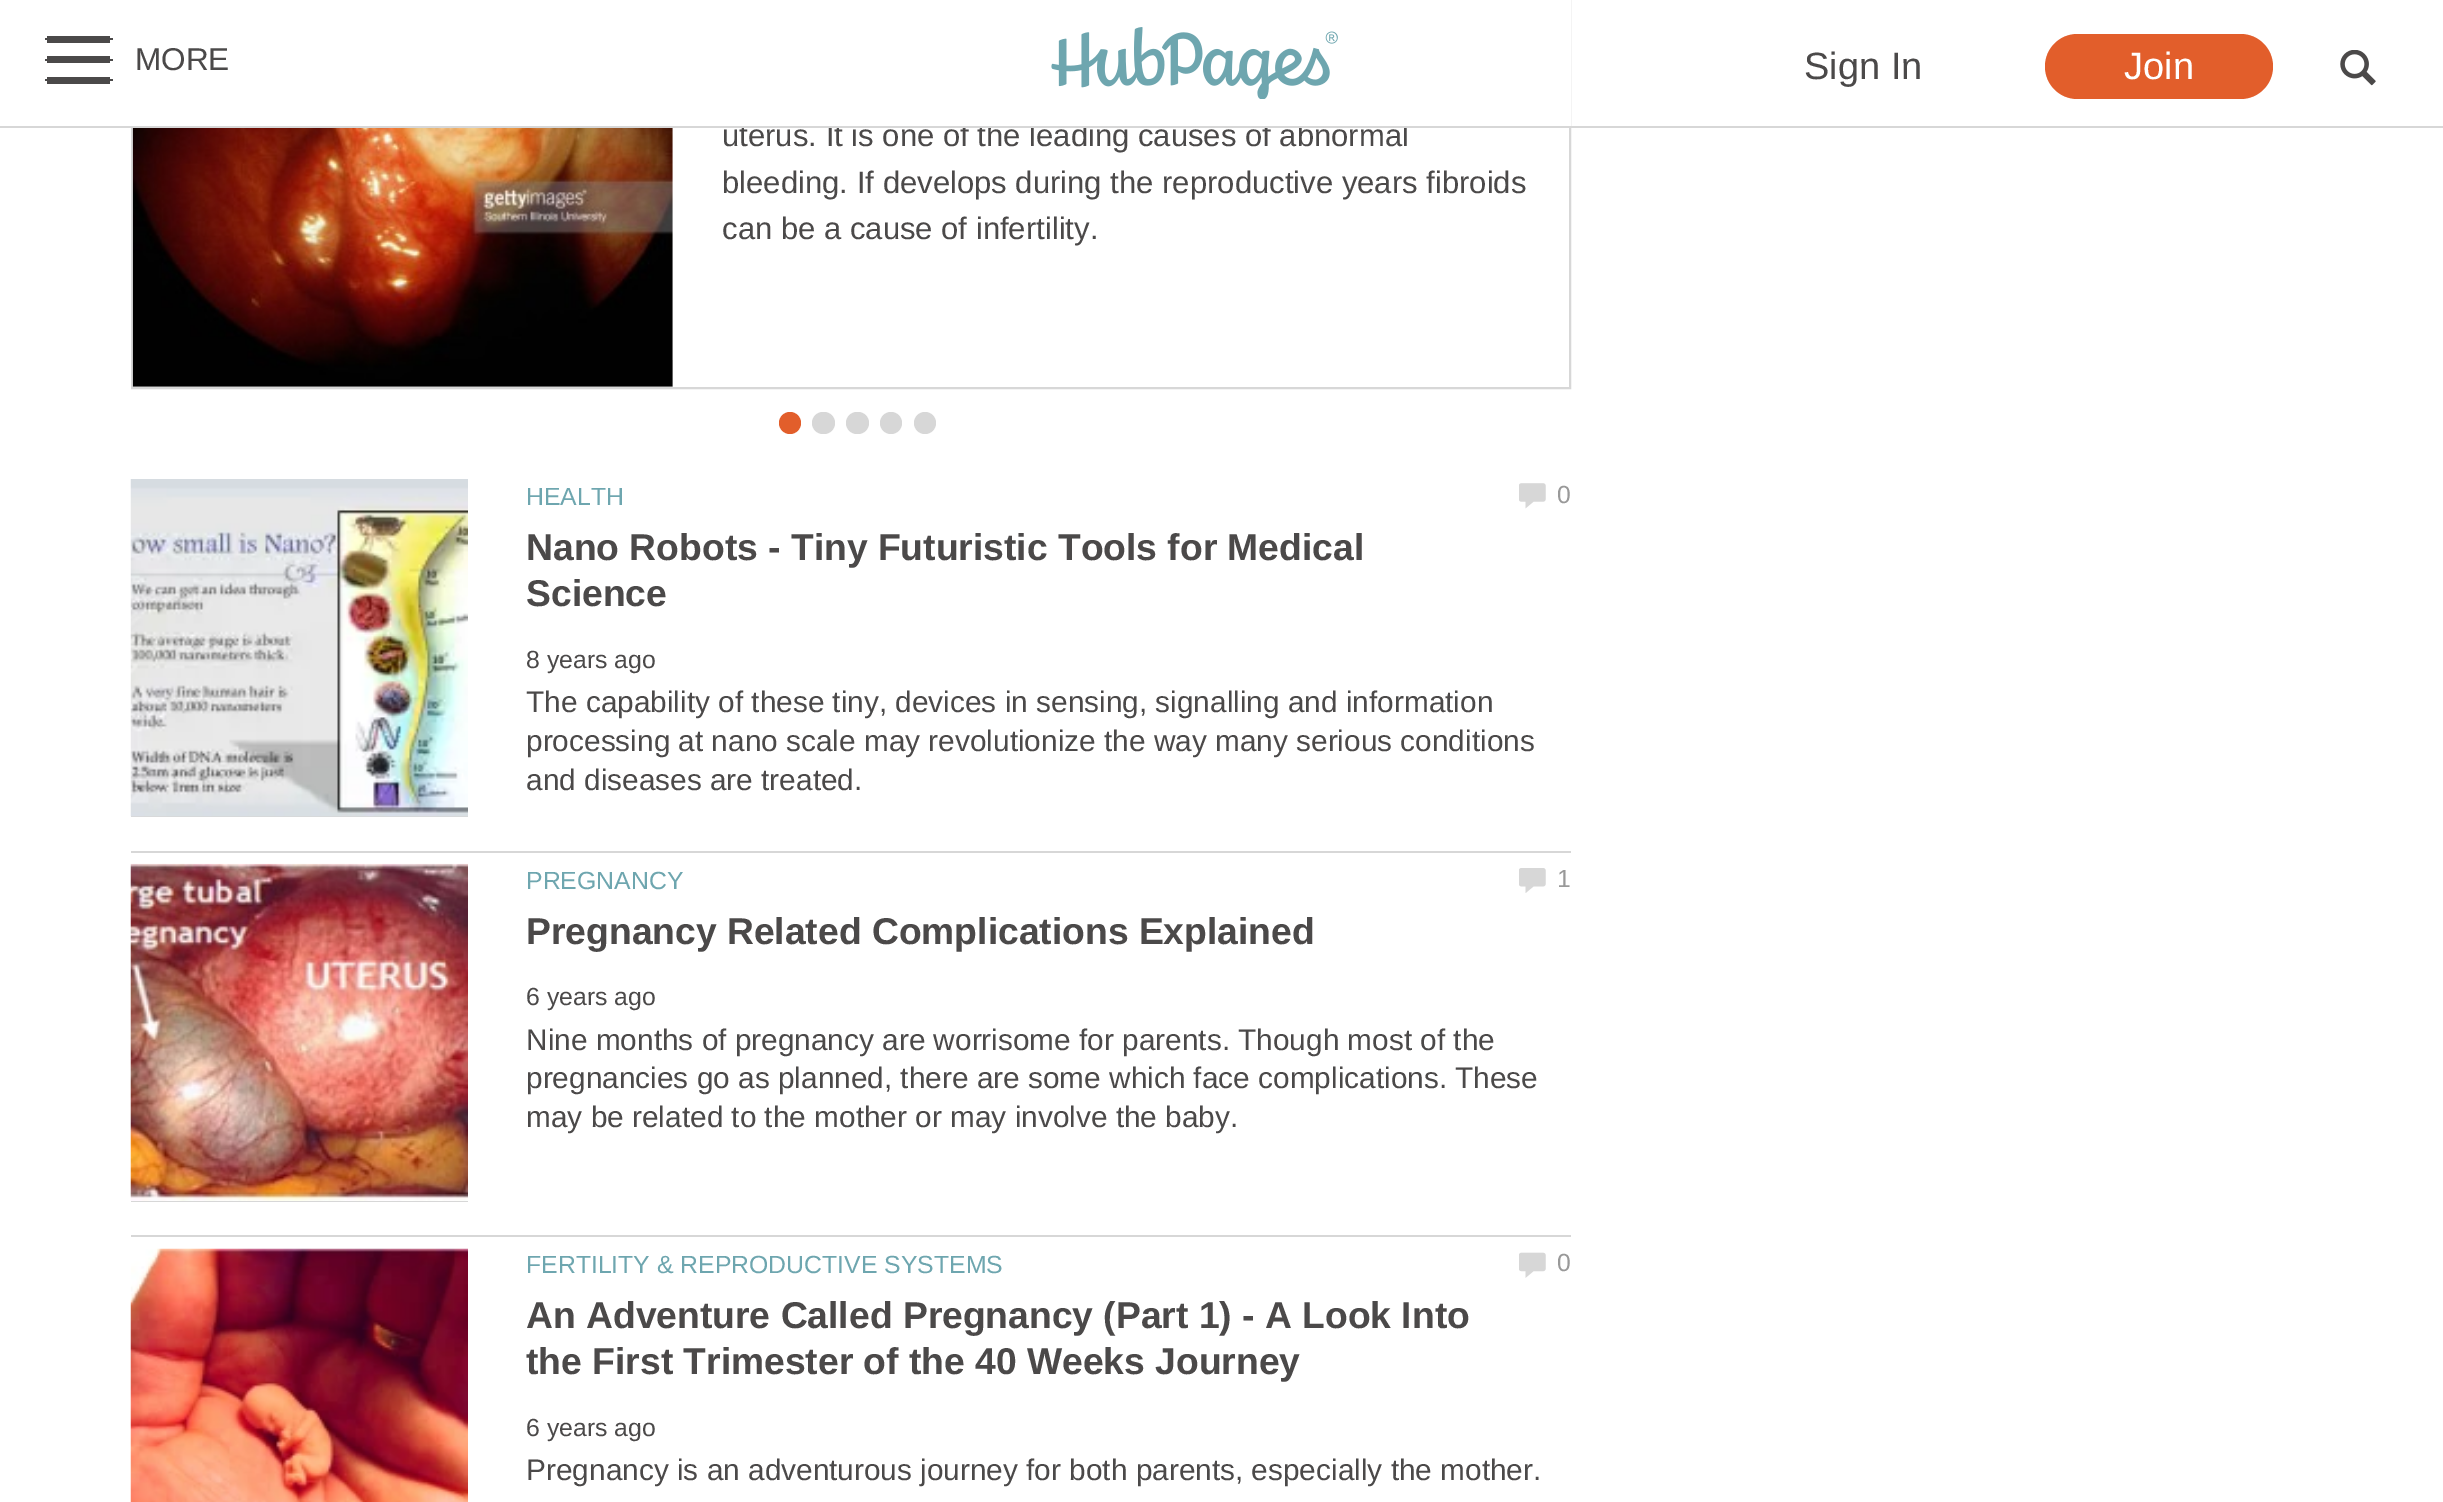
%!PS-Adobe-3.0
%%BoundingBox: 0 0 2443 1502
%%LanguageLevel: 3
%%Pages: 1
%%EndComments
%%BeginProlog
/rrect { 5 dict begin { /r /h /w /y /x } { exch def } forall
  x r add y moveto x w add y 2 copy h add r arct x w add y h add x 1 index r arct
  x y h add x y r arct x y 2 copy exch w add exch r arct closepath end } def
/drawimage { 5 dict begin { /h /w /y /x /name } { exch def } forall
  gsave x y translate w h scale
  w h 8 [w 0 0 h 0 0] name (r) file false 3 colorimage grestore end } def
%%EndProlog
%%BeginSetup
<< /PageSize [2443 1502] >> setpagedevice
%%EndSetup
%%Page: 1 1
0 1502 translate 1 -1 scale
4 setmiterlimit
1 setgray
0 0 2443 1502 rectfill
0.294 0.286 0.286 setrgbcolor
106 38 7 2 rectfill
47 36 63 7 rectfill
45 38 7 2 rectfill
106 59 7 2 rectfill
47 56 63 7 rectfill
45 59 7 2 rectfill
106 79 7 2 rectfill
47 77 63 7 rectfill
45 79 7 2 rectfill
0.886 0.369 0.169 setrgbcolor
2045 34 228 65 32.5 rrect fill
(images/2.raw) 2340 50 36 36 drawimage
0.843 setgray
2 setlinewidth
132 -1 1438 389 rectstroke
0.898 setgray
133 360 540 27 rectfill
(images/3.raw) 132 128 541 259 drawimage
0.886 0.369 0.169 setrgbcolor
newpath 790 423 11 0 360 arc closepath fill
0.843 setgray
812 412 23 22 11 rrect fill
846 412 23 22 11 rrect fill
newpath 891 423 11 0 360 arc closepath fill
newpath 925 423 11 0 360 arc closepath fill
131 851 1440 2 rectfill
131 816 337 1 rectfill
(images/4.raw) 130 479 338 338 drawimage
(images/5.raw) 1519 483 27 26 drawimage
131 1235 1440 2 rectfill
131 1201 337 1 rectfill
(images/6.raw) 130 863 338 338 drawimage
(images/7.raw) 1519 868 27 25 drawimage
(images/8.raw) 130 1248 338 254 drawimage
(images/9.raw) 1519 1252 27 26 drawimage
/LiberationSans-Regular [38 0 0 -38 0 0] selectfont
0.294 0.286 0.286 setrgbcolor
1804 79 moveto (Sign In) show
1 setgray
2124 79 moveto (Join) show
/LiberationSans-Regular [31.05 0 0 -31.05 0 0] selectfont
0.294 0.286 0.286 setrgbcolor
722 146 moveto (uterus. It is one of the leading causes of abnormal) show
1 setgray
131 0 1440 126 rectfill
(images/1.raw) 1051 27 287 72 drawimage
/LiberationSans-Regular [31.5 0 0 -31.5 0 0] selectfont
0.294 0.286 0.286 setrgbcolor
135 70 moveto (MORE) show
0.843 setgray
0 126 2443 2 rectfill
/LiberationSans-Regular [31.05 0 0 -31.05 0 0] selectfont
0.294 0.286 0.286 setrgbcolor
722 193 moveto (bleeding. If develops during the reproductive years fibroids) show
722 239 moveto (can be a cause of infertility.) show
/LiberationSans-Regular [24.8 0 0 -24.8 0 0] selectfont
0.431 0.651 0.686 setrgbcolor
526 505 moveto (HEALTH) show
0.6 setgray
1557 503 moveto (0) show
/LiberationSans-Bold [37.25 0 0 -37.25 0 0] selectfont
0.294 0.286 0.286 setrgbcolor
526 560 moveto (Nano Robots - Tiny Futuristic Tools for Medical) show
526 606 moveto (Science) show
/LiberationSans-Regular [24.8 0 0 -24.8 0 0] selectfont
526 668 moveto (8 years ago) show
/LiberationSans-Regular [29.8 0 0 -29.8 0 0] selectfont
526 712 moveto (The capability of these tiny, devices in sensing, signalling and information) show
526 751 moveto (processing at nano scale may revolutionize the way many serious conditions) show
526 790 moveto (and diseases are treated.) show
/LiberationSans-Regular [24.8 0 0 -24.8 0 0] selectfont
0.431 0.651 0.686 setrgbcolor
526 889 moveto (PREGNANCY) show
0.6 setgray
1557 887 moveto (1) show
/LiberationSans-Bold [37.25 0 0 -37.25 0 0] selectfont
0.294 0.286 0.286 setrgbcolor
526 944 moveto (Pregnancy Related Complications Explained) show
/LiberationSans-Regular [24.8 0 0 -24.8 0 0] selectfont
526 1005 moveto (6 years ago) show
/LiberationSans-Regular [29.8 0 0 -29.8 0 0] selectfont
526 1050 moveto (Nine months of pregnancy are worrisome for parents. Though most of the) show
526 1088 moveto (pregnancies go as planned, there are some which face complications. These) show
526 1127 moveto (may be related to the mother or may involve the baby.) show
/LiberationSans-Regular [24.8 0 0 -24.8 0 0] selectfont
0.431 0.651 0.686 setrgbcolor
526 1273 moveto (FERTILITY & REPRODUCTIVE SYSTEMS) show
0.6 setgray
1557 1271 moveto (0) show
/LiberationSans-Bold [37.25 0 0 -37.25 0 0] selectfont
0.294 0.286 0.286 setrgbcolor
526 1328 moveto (An Adventure Called Pregnancy \(Part 1\) - A Look Into) show
526 1374 moveto (the First Trimester of the 40 Weeks Journey) show
/LiberationSans-Regular [24.8 0 0 -24.8 0 0] selectfont
526 1436 moveto (6 years ago) show
/LiberationSans-Regular [29.8 0 0 -29.8 0 0] selectfont
526 1480 moveto (Pregnancy is an adventurous journey for both parents, especially the mother.) show
showpage
%%EOF
